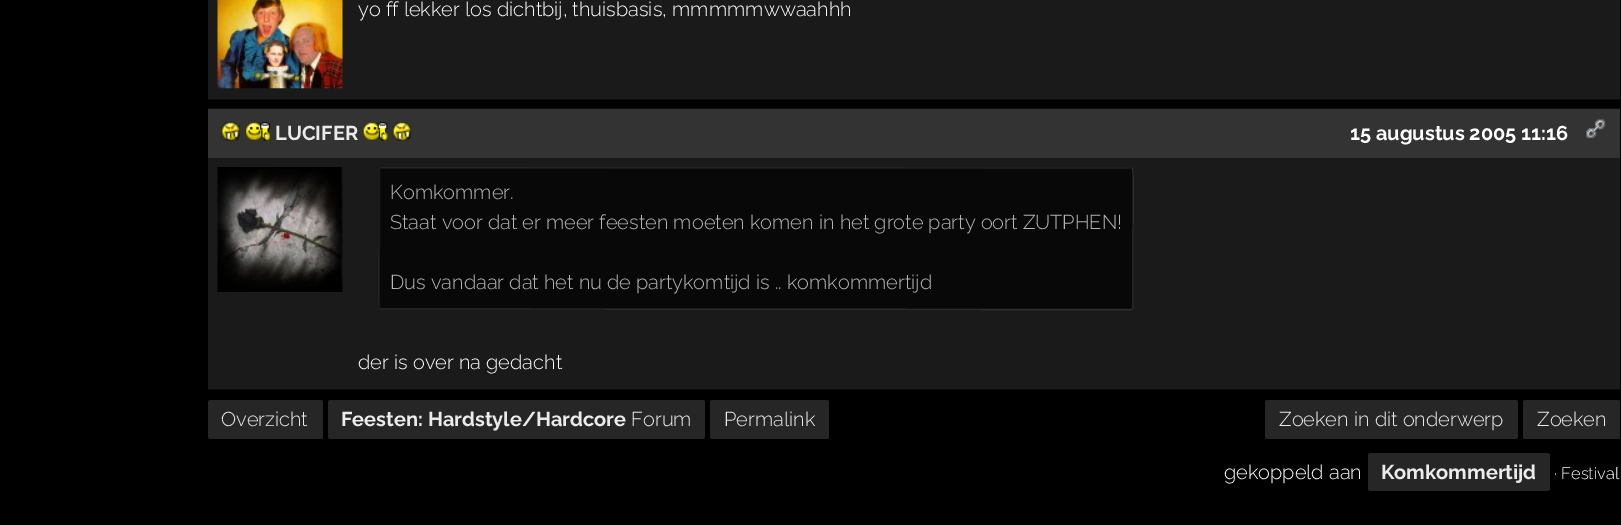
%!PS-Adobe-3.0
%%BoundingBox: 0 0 1621 525
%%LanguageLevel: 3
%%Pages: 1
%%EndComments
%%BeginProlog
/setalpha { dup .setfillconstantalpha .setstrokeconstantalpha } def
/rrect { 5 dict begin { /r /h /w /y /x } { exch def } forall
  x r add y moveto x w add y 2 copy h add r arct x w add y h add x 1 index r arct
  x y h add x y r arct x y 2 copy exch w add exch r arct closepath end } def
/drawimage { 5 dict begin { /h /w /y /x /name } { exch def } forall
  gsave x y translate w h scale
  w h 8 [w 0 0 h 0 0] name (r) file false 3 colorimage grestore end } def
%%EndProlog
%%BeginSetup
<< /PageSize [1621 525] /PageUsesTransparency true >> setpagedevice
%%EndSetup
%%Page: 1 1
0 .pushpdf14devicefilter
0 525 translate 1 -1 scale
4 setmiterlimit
0 setgray
0 0 1621 525 rectfill
0.051 setgray
208 99 1412 1 rectfill
0.102 setgray
208 0 1412 99 rectfill
(images/1.raw) 217 0 126 89 drawimage
0.051 setgray
208 108 1412 1 rectfill
208 389 1412 1 rectfill
0.2 setgray
208 109 1412 49 rectfill
(images/2.raw) 221 122 19 19 drawimage
(images/3.raw) 245 122 25 19 drawimage
(images/4.raw) 362 122 26 19 drawimage
(images/5.raw) 392 122 20 19 drawimage
(images/6.raw) 1586 119 20 21 drawimage
0.102 setgray
208 158 1412 231 rectfill
(images/7.raw) 217 167 126 125 drawimage
0.031 setgray
379 168 755 142 2.5 rrect fill
0.15 setalpha
1 setgray
1.2 setlinewidth
newpath 1132.5 168.5 moveto 1134 170 1133 232 1133 239 curveto 1133 307.5 lineto 1133 308.5 1132.5 309.5 1131 309.5 curveto 380.5 309 lineto 380 309 lineto stroke
0.07 setalpha
newpath 380 309 moveto 378.5 307.5 379.5 245.5 379.5 239 curveto 379.5 170 lineto 379.5 169 380 168 381 168 curveto 1132 168.5 lineto 1132.5 168.5 lineto stroke
1 setalpha
0.149 setgray
208 400 115 39 2.5 rrect fill
newpath 330.5 400 moveto 625 400 lineto 625 439 lineto 330.5 439 lineto 329 439 328 438 328 436.5 curveto 328 402.5 lineto 328 401 329 400 330.5 400 curveto closepath fill
newpath 625 400 moveto 702.5 400 lineto 704 400 705 401 705 402.5 curveto 705 436.5 lineto 705 438 704 439 702.5 439 curveto 625 439 lineto closepath fill
710 400 119 39 2.5 rrect fill
1265 400 253 39 2.5 rrect fill
1523 400 97 39 2.5 rrect fill
1368 453 182 38 2.5 rrect fill
/Raleway-Light [20 0 0 -20 0 0] selectfont
1 setgray
358 16 moveto (yo ff lekker los dichtbij, thuisbasis, mmmmmwwaahhh) show
/Raleway-Bold [20 0 0 -20 0 0] selectfont
0.922 setgray
275 140 moveto (LUCIFER) show
1 setgray
1350 140 moveto (15 augustus 2005 11:16) show
/Raleway-Light [20 0 0 -20 0 0] selectfont
0.71 setgray
390 199 moveto (Komkommer.) show
390 229 moveto (Staat voor dat er meer feesten moeten komen in het grote party oort ZUTPHEN!) show
390 289 moveto (Dus vandaar dat het nu de partykomtijd is .. komkommertijd) show
1 setgray
358 369 moveto (der is over na gedacht) show
0.922 setgray
221 426 moveto (Overzicht) show
/Raleway-Bold [20 0 0 -20 0 0] selectfont
341 426 moveto (Feesten: Hardstyle/Hardcore) show
/Raleway-Light [20 0 0 -20 0 0] selectfont
631 426 moveto (Forum) show
724 426 moveto (Permalink) show
1279 426 moveto (Zoeken in dit onderwerp) show
1537 426 moveto (Zoeken) show
1 setgray
1224 479 moveto (gekoppeld aan) show
/Raleway-Bold [20 0 0 -20 0 0] selectfont
0.922 setgray
1381 479 moveto (Komkommertijd) show
/Raleway-Light [16.5 0 0 -16.5 0 0] selectfont
1 setgray
1554 479 moveto (· Festival) show
.poppdf14devicefilter showpage
%%EOF
